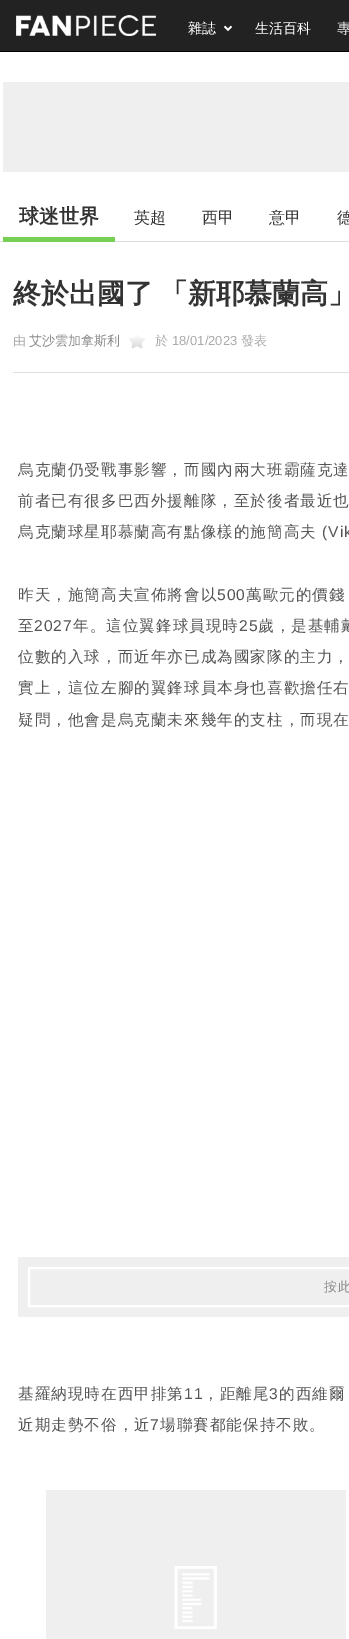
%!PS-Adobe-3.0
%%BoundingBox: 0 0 349 1639
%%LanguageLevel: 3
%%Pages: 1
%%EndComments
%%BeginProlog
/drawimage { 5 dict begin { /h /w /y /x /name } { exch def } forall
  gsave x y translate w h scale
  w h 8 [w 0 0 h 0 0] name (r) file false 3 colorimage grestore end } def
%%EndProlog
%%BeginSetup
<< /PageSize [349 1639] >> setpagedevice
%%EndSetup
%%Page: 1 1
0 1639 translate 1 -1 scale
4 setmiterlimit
1 setgray
0 0 349 1639 rectfill
0.133 setgray
0 0 349 51 rectfill
0 setgray
0 51 349 1 rectfill
(images/1.raw) 16 15 140 21 drawimage
(images/2.raw) 223 25 10 7 drawimage
0.937 setgray
3 82 346 90 rectfill
0.867 setgray
0 241 349 1 rectfill
0.467 0.812 0.329 setrgbcolor
3 237 112 5 rectfill
0.867 setgray
13 372 336 1 rectfill
(images/3.raw) 129 335 16 14 drawimage
0.937 setgray
18 1257 331 60 rectfill
1 setgray
2 setlinewidth
29 1268 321 38 rectstroke
0.937 setgray
46 1490 300 149 rectfill
(images/4.raw) 174 1566 43 63 drawimage
/WenQuanYiZenHei-Medium [14 0 0 -14 0 0] selectfont
1 setgray
188 33 moveto (雜誌) show
255 33 moveto (生活百科) show
337 33 moveto (專) show
/WenQuanYiZenHei-Bold [20 0 0 -20 0 0] selectfont
0.2 setgray
19 223 moveto (球迷世界) show
/WenQuanYiZenHei-Medium [16 0 0 -16 0 0] selectfont
134 223 moveto (英超) show
202 223 moveto (西甲) show
269 223 moveto (意甲) show
337 223 moveto (德) show
/WenQuanYiZenHei-Bold [28 0 0 -28 0 0] selectfont
13 303 moveto (終於出國了) show
160 303 moveto (「新耶慕蘭高」) show
/WenQuanYiZenHei-Medium [13 0 0 -13 0 0] selectfont
0.667 setgray
13 345 moveto (由) show
0.533 setgray
29 345 moveto (艾沙雲加拿斯利) show
0.667 setgray
155 345 moveto (於) show
/LiberationSans-Regular [13 0 0 -13 0 0] selectfont
172 345 moveto (18/01/2023) show
/WenQuanYiZenHei-Medium [13 0 0 -13 0 0] selectfont
241 345 moveto (發表) show
/WenQuanYiZenHei-Medium [15.6 0 0 -15.6 0 0] selectfont
0.333 setgray
18 475 moveto 1 0 (烏克蘭仍受戰事影響，而國內兩大班霸薩克達) ashow
18 506 moveto 1 0 (前者已有很多巴西外援離隊，至於後者最近也) ashow
18 537 moveto 1 0 (烏克蘭球星耶慕蘭高有點像樣的施簡高夫) ashow
/LiberationSans-Regular [15.6 0 0 -15.6 0 0] selectfont
322 537 moveto 1 0 (\(Vik) ashow
/WenQuanYiZenHei-Medium [15.6 0 0 -15.6 0 0] selectfont
18 600 moveto 1 0 (昨天，施簡高夫宣佈將會以) ashow
/LiberationSans-Regular [15.6 0 0 -15.6 0 0] selectfont
217 600 moveto 1 0 (500) ashow
/WenQuanYiZenHei-Medium [15.6 0 0 -15.6 0 0] selectfont
246 600 moveto 1 0 (萬歐元的價錢) ashow
18 631 moveto 1 0 (至) ashow
/LiberationSans-Regular [15.6 0 0 -15.6 0 0] selectfont
34 631 moveto 1 0 (2027) ashow
/WenQuanYiZenHei-Medium [15.6 0 0 -15.6 0 0] selectfont
73 631 moveto 1 0 (年。這位翼鋒球員現時) ashow
/LiberationSans-Regular [15.6 0 0 -15.6 0 0] selectfont
239 631 moveto 1 0 (25) ashow
/WenQuanYiZenHei-Medium [15.6 0 0 -15.6 0 0] selectfont
258 631 moveto 1 0 (歲，是基輔戴) ashow
18 662 moveto 1 0 (位數的入球，而近年亦已成為國家隊的主力，) ashow
18 693 moveto 1 0 (實上，這位左腳的翼鋒球員本身也喜歡擔任右) ashow
18 725 moveto 1 0 (疑問，他會是烏克蘭未來幾年的支柱，而現在) ashow
/WenQuanYiZenHei-Medium [13 0 0 -13 0 0] selectfont
0.533 setgray
324 1291 moveto 1 0 (按此) ashow
/WenQuanYiZenHei-Medium [15.6 0 0 -15.6 0 0] selectfont
0.333 setgray
18 1399 moveto 1 0 (基羅納現時在西甲排第) ashow
/LiberationSans-Regular [15.6 0 0 -15.6 0 0] selectfont
184 1399 moveto 1 0 (11) ashow
/WenQuanYiZenHei-Medium [15.6 0 0 -15.6 0 0] selectfont
203 1399 moveto 1 0 (，距離尾) ashow
/LiberationSans-Regular [15.6 0 0 -15.6 0 0] selectfont
269 1399 moveto 1 0 (3) ashow
/WenQuanYiZenHei-Medium [15.6 0 0 -15.6 0 0] selectfont
279 1399 moveto 1 0 (的西維爾) ashow
18 1430 moveto 1 0 (近期走勢不俗，近) ashow
/LiberationSans-Regular [15.6 0 0 -15.6 0 0] selectfont
150 1430 moveto 1 0 (7) ashow
/WenQuanYiZenHei-Medium [15.6 0 0 -15.6 0 0] selectfont
160 1430 moveto 1 0 (場聯賽都能保持不敗。) ashow
showpage
%%EOF
